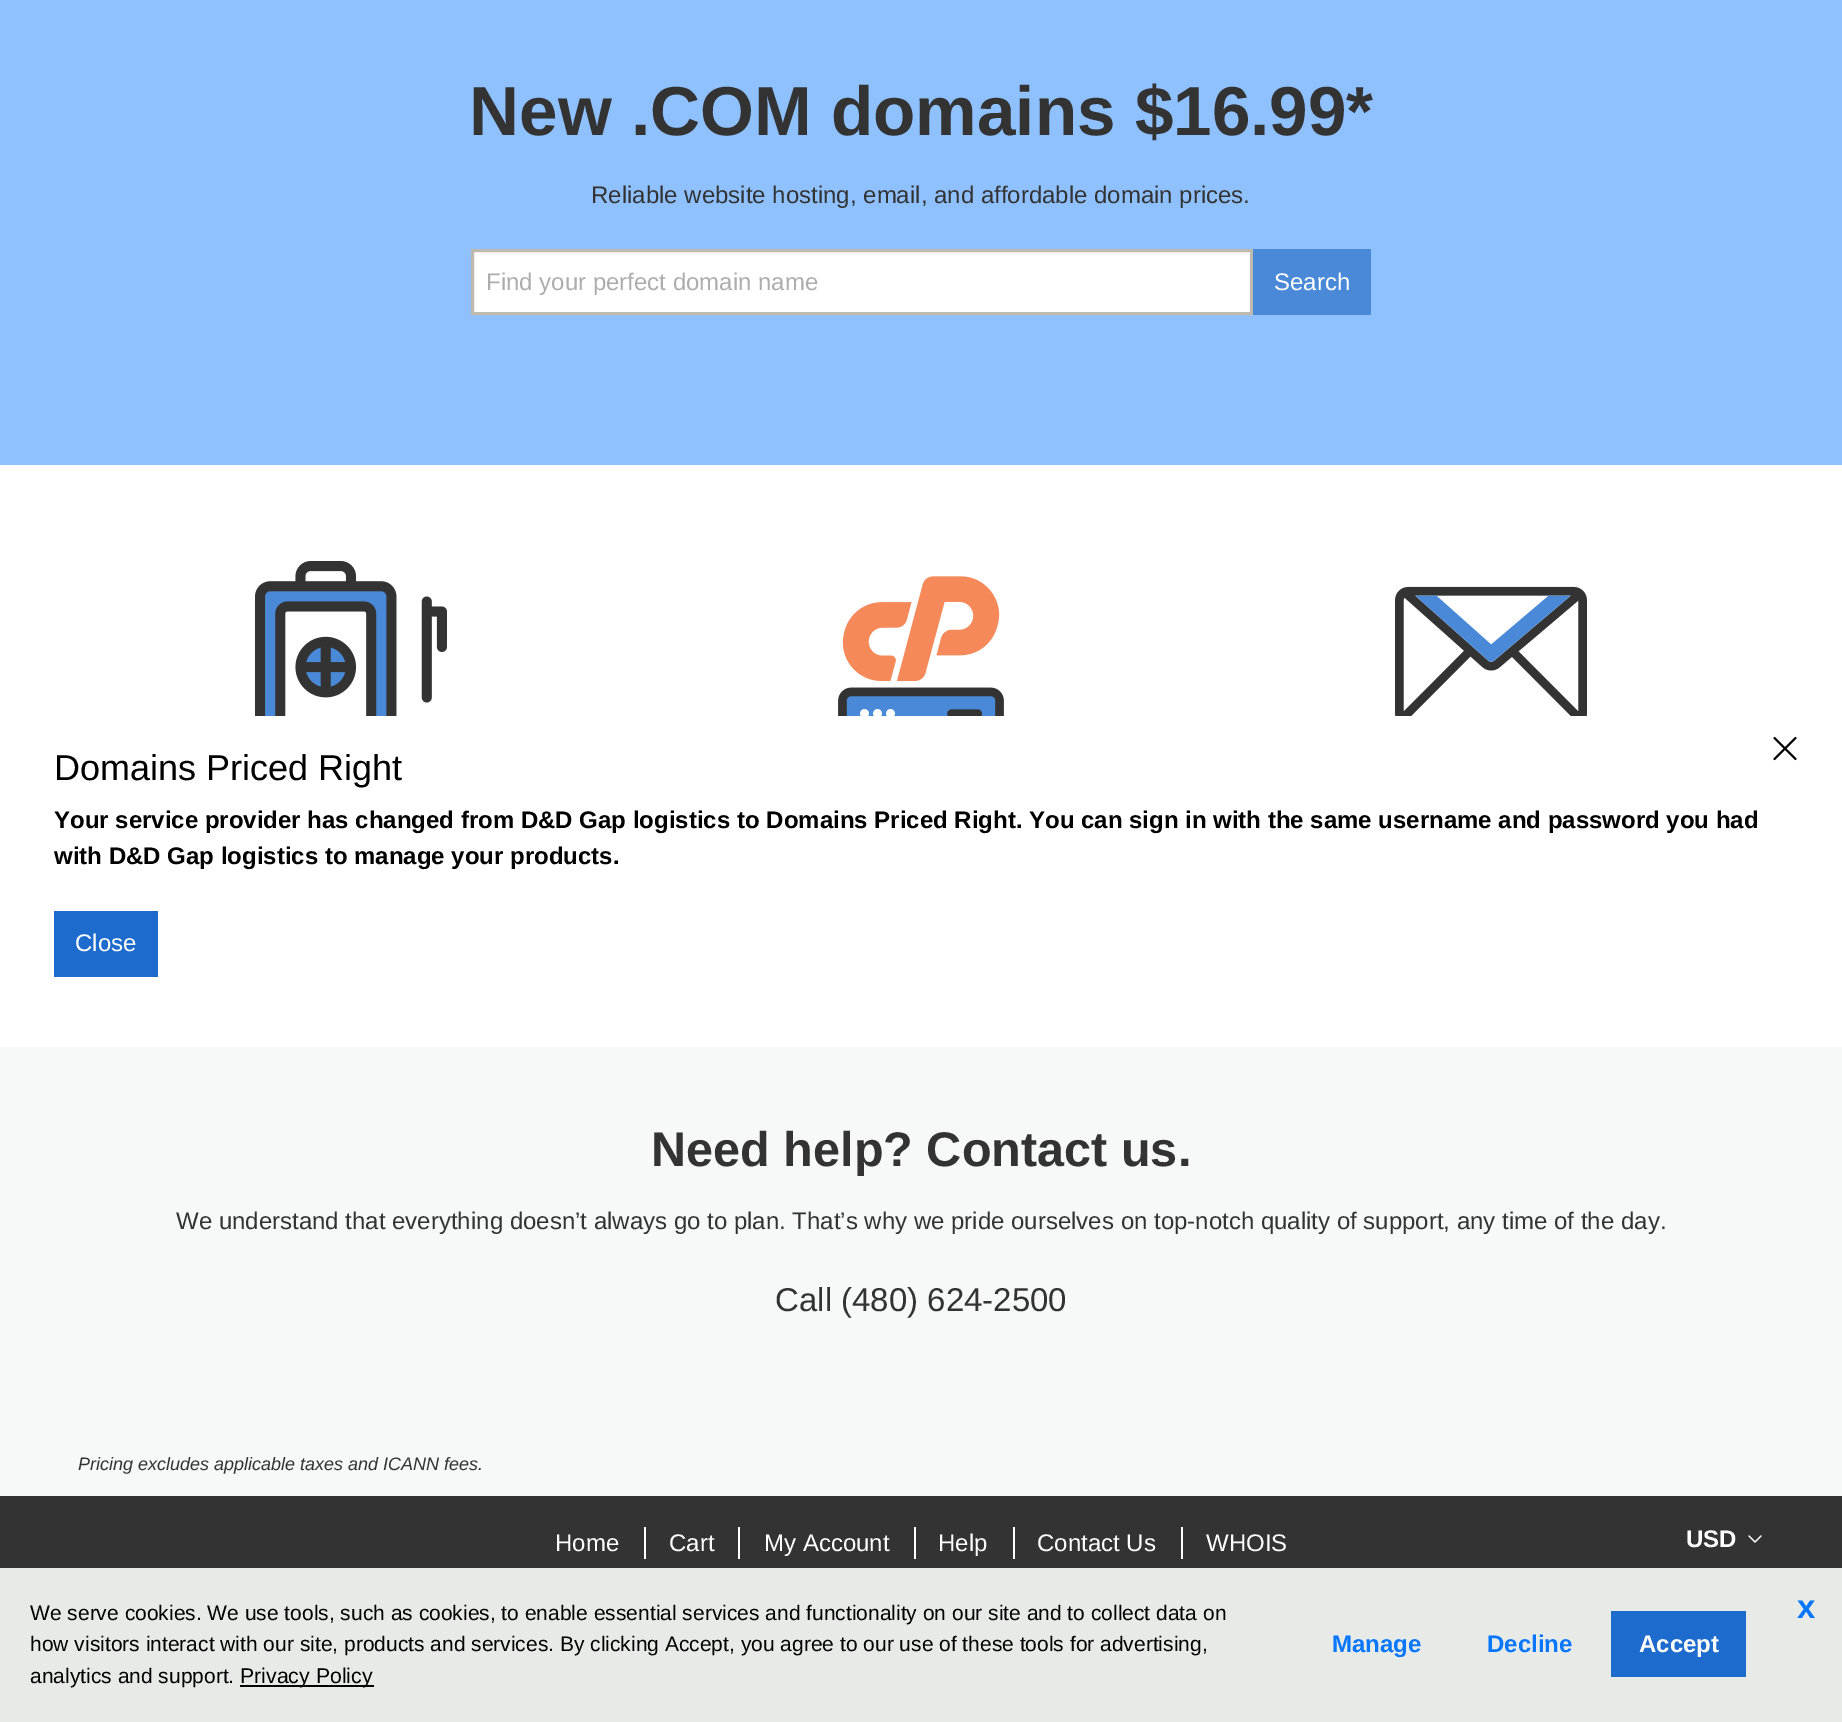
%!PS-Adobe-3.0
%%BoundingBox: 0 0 1842 1722
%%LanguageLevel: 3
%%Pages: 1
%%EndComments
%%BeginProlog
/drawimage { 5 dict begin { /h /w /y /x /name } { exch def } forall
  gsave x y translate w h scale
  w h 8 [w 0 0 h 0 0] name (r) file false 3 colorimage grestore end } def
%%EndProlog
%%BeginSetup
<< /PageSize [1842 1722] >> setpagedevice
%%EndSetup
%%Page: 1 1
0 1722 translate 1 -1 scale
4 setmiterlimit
0.969 0.976 0.976 setrgbcolor
0 0 1842 1722 rectfill
0.561 0.757 1 setrgbcolor
0 0 1842 465 rectfill
1 setgray
newpath 472.5 250.5 moveto 1251.5 250.5 lineto 1251.5 313.5 lineto 472.5 313.5 lineto closepath gsave fill grestore
0.745 0.729 0.69 setrgbcolor
3 setlinewidth
stroke
0.29 0.537 0.843 setrgbcolor
1253 249 118 66 rectfill
1 setgray
0 465 1842 582 rectfill
(images/1.raw) 255 561 192 155 drawimage
(images/2.raw) 838 576 166 140 drawimage
(images/3.raw) 1395 586 192 130 drawimage
(images/4.raw) 1773 736 24 25 drawimage
0.114 0.424 0.804 setrgbcolor
54 911 104 66 rectfill
0.2 setgray
0 1496 1842 72 rectfill
1 setgray
644 1527 2 32 rectfill
738 1527 2 32 rectfill
914 1527 2 32 rectfill
1013 1527 2 32 rectfill
1181 1527 2 32 rectfill
(images/5.raw) 1748 1535 14 8 drawimage
0.91 0.918 0.91 setrgbcolor
0 1568 1842 154 rectfill
0 setgray
240 1685 134 2 rectfill
0.114 0.424 0.804 setrgbcolor
1611 1611 135 66 rectfill
/LiberationSans-Bold [69.25 0 0 -69.25 0 0] selectfont
0.2 setgray
469 135 moveto (New .COM domains $16.99*) show
/LiberationSans-Regular [24 0 0 -24 0 0] selectfont
591 203 moveto (Reliable website hosting, email, and affordable domain prices.) show
0.678 setgray
486 290 moveto (Find your perfect domain name) show
1 setgray
1274 290 moveto (Search) show
/LiberationSans-Bold [48.6 0 0 -48.6 0 0] selectfont
0.2 setgray
651 1166 moveto (Need help? Contact us.) show
/LiberationSans-Regular [24 0 0 -24 0 0] selectfont
176 1229 moveto (We understand that everything doesn’t always go to plan. That’s why we pride ourselves on top-notch quality of support, any time of the day.) show
/LiberationSans-Regular [33 0 0 -33 0 0] selectfont
775 1311 moveto (Call \(480\) 624-2500) show
/LiberationSans-Italic [18 0 0 -18 0 0] selectfont
78 1470 moveto (Pricing excludes applicable taxes and ICANN fees.) show
/LiberationSans-Regular [36 0 0 -36 0 0] selectfont
0 setgray
54 780 moveto (Domains Priced Right) show
/LiberationSans-Bold [24 0 0 -24 0 0] selectfont
54 828 moveto (Your service provider has changed from D&D Gap logistics to Domains Priced Right. You can sign in with the same username and password you had) show
54 864 moveto (with D&D Gap logistics to manage your products.) show
/LiberationSans-Regular [24 0 0 -24 0 0] selectfont
1 setgray
75 951 moveto (Close) show
555 1551 moveto (Home) show
669 1551 moveto (Cart) show
764 1551 moveto (My Account) show
938 1551 moveto (Help) show
1037 1551 moveto (Contact Us) show
1206 1551 moveto (WHOIS) show
/LiberationSans-Bold [24 0 0 -24 0 0] selectfont
1686 1547 moveto (USD) show
/LiberationSans-Regular [21 0 0 -21 0 0] selectfont
0 setgray
30 1620 moveto (We serve cookies. We use tools, such as cookies, to enable essential services and functionality on our site and to collect data on) show
30 1651 moveto (how visitors interact with our site, products and services. By clicking Accept, you agree to our use of these tools for advertising,) show
30 1683 moveto (analytics and support.) show
/LiberationSans-Regular [21.25 0 0 -21.25 0 0] selectfont
240 1683 moveto (Privacy Policy) show
/LiberationSans-Bold [24 0 0 -24 0 0] selectfont
0.031 0.467 1 setrgbcolor
1332 1652 moveto (Manage) show
1487 1652 moveto (Decline) show
1 setgray
1639 1652 moveto (Accept) show
/LiberationSans-Bold [33 0 0 -33 0 0] selectfont
0.031 0.467 1 setrgbcolor
1797 1618 moveto (x) show
showpage
%%EOF
